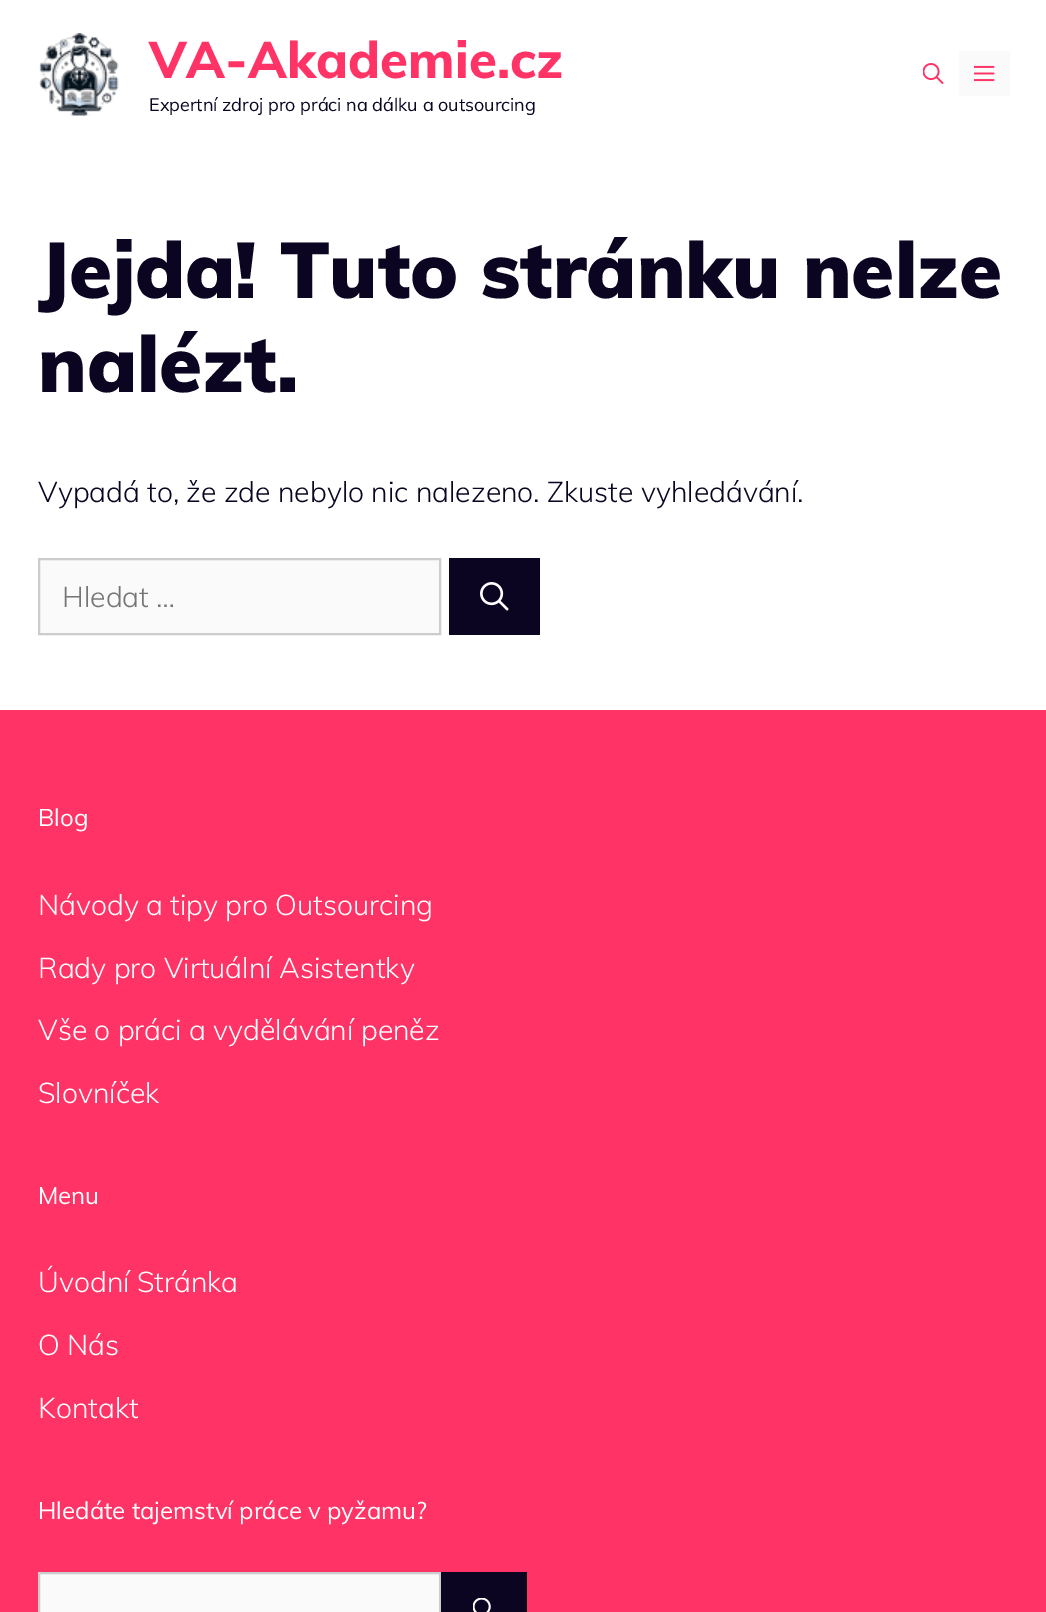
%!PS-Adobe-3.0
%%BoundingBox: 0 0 1046 1612
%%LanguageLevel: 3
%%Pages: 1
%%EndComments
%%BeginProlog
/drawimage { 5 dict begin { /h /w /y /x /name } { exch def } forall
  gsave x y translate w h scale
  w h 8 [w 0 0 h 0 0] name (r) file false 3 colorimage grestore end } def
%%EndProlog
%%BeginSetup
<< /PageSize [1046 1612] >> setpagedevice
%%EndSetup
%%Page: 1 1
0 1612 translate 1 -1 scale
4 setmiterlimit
1 setgray
0 0 1046 1612 rectfill
(images/1.raw) 39 33 80 83 drawimage
(images/2.raw) 923 63 21 21 drawimage
0.98 setgray
959 51 51 45 rectfill
(images/3.raw) 974 65 21 17 drawimage
newpath 39 559 moveto 440 559 lineto 440 634 lineto 39 634 lineto closepath gsave fill grestore
0.8 setgray
2 setlinewidth
stroke
0.043 0.02 0.129 setrgbcolor
449 558 91 77 rectfill
(images/4.raw) 480 582 29 29 drawimage
1 0.2 0.4 setrgbcolor
0 710 1046 902 rectfill
0.98 setgray
newpath 39 1573 moveto 440 1573 lineto 440 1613 lineto 39 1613 lineto closepath gsave fill grestore
0.8 setgray
stroke
0.043 0.02 0.129 setrgbcolor
441 1572 86 40 rectfill
(images/5.raw) 473 1598 18 14 drawimage
/Muli-ExtraBold [51 0 0 -51 0 0] selectfont
1 0.2 0.4 setrgbcolor
149 78 moveto (VA-Akademie.cz) show
/Muli-Regular [18 0 0 -18 0 0] selectfont
0.043 0.02 0.129 setrgbcolor
149 111 moveto (Expertní zdroj pro práci na dálku a outsourcing) show
/Muli-Black [78 0 0 -78 0 0] selectfont
38 298 moveto (Jejda! Tuto stránku nelze) show
38 392 moveto (nalézt.) show
/Muli-Light [28.5 0 0 -28.5 0 0] selectfont
38 502 moveto (Vypadá to, že zde nebylo nic nalezeno. Zkuste vyhledávání.) show
0.459 setgray
62 607 moveto (Hledat …) show
/Muli-Regular [24 0 0 -24 0 0] selectfont
1 setgray
38 826 moveto (Blog) show
/Muli-Light [28.5 0 0 -28.5 0 0] selectfont
38 915 moveto (Návody a tipy pro Outsourcing) show
38 978 moveto (Rady pro Virtuální Asistentky) show
38 1040 moveto (Vše o práci a vydělávání peněz) show
38 1103 moveto (Slovníček) show
/Muli-Regular [24 0 0 -24 0 0] selectfont
38 1204 moveto (Menu) show
/Muli-Light [28.5 0 0 -28.5 0 0] selectfont
38 1292 moveto (Úvodní Stránka) show
38 1355 moveto (O Nás) show
38 1418 moveto (Kontakt) show
/Muli-Regular [24 0 0 -24 0 0] selectfont
38 1519 moveto (Hledáte tajemství práce v pyžamu?) show
showpage
%%EOF
